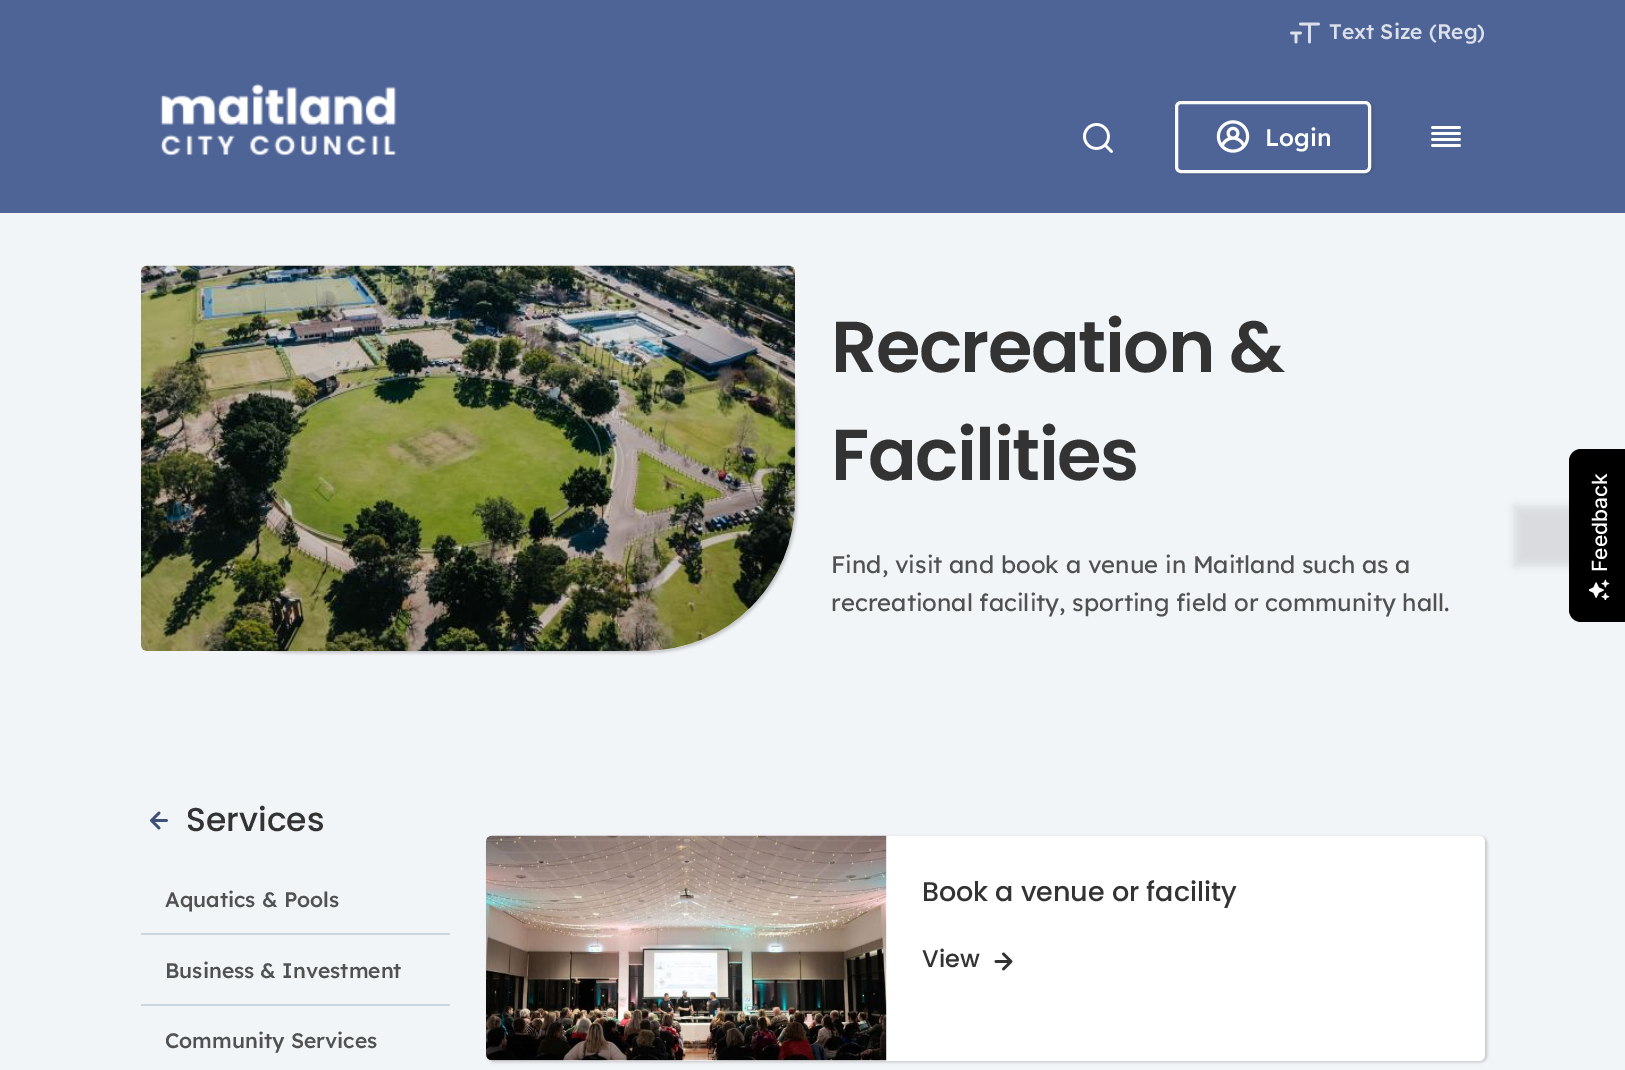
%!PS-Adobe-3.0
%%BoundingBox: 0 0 1625 1070
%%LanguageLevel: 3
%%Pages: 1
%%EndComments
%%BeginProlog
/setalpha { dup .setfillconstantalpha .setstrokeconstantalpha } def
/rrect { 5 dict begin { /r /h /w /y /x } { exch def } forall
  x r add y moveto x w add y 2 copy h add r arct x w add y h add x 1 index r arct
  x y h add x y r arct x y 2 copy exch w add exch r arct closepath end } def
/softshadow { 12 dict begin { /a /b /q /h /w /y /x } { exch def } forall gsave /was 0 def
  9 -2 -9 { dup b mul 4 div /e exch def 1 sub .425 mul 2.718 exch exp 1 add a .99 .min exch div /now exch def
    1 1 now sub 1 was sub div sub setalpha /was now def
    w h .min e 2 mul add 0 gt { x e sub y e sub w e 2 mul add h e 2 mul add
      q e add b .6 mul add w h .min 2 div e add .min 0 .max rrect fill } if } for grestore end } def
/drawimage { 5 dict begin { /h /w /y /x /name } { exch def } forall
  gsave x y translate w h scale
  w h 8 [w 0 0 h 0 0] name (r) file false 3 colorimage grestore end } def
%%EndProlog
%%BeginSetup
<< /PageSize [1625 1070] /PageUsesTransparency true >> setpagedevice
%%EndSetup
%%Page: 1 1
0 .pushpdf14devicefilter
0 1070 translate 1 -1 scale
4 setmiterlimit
0.949 0.961 0.973 setrgbcolor
0 0 1625 1070 rectfill
0.306 0.392 0.588 setrgbcolor
0 0 1625 213 rectfill
(images/1.raw) 1290 22 30 22 drawimage
(images/2.raw) 160 83 237 74 drawimage
(images/3.raw) 1083 123 30 30 drawimage
gsave
newpath 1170 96 moveto 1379 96 lineto 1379 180 lineto 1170 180 lineto closepath 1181 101 moveto 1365 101 lineto 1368.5 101 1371 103.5 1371 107 curveto 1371 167 lineto 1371 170.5 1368.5 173 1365 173 curveto 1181 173 lineto 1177.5 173 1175 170.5 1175 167 curveto 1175 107 lineto 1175 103.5 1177.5 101 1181 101 curveto closepath eoclip newpath
0.2 setgray
1176 102 197 72 6 1.5 0.25 softshadow
grestore
0.98 setgray
3 setlinewidth
1176.5 102.5 193 69 4.5 rrect stroke
(images/4.raw) 1216 120 34 33 drawimage
(images/5.raw) 1431 126 30 21 drawimage
0.2 setgray
143 267 654 386 150 1.5 0.25 softshadow
(images/6.raw) 141 265 654 386 drawimage
(images/7.raw) 150 811 18 19 drawimage
0.796 0.839 0.871 setrgbcolor
141 933 309 2 rectfill
141 1004 309 2 rectfill
0.2 setgray
488 837 999 225 6 1.5 0.25 softshadow
1 setgray
486 836 999 225 6 rrect fill
(images/8.raw) 486 835 401 226 drawimage
(images/9.raw) 994 952 19 19 drawimage
0 setgray
1514 506 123 60 0 4 0.1 softshadow
newpath 1569 610 moveto 1569 461 lineto 1569 455 1574 449 1581 449 curveto 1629 449 lineto 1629 622 lineto 1581 622 lineto 1574 622 1569 616 1569 610 curveto closepath fill
(images/10.raw) 1589 579 21 21 drawimage
/Lexend-Medium [21 0 0 -21 0 0] selectfont
0.863 0.878 0.918 setrgbcolor
1329 39 moveto (Text Size \(Reg\)) show
/Lexend-Medium [24 0 0 -24 0 0] selectfont
1 setgray
1265 146 moveto (Login) show
/Poppins-SemiBold [72 0 0 -72 0 0] selectfont
0.2 setgray
831 372 moveto -1.5 0 (Recreation &) ashow
831 480 moveto -1.5 0 (Facilities) ashow
/Lexend-Regular [24 0 0 -24 0 0] selectfont
0.318 setgray
831 573 moveto (Find, visit and book a venue in Maitland such as a) show
831 611 moveto (recreational facility, sporting field or community hall.) show
/Poppins-Medium [33 0 0 -33 0 0] selectfont
0.2 setgray
186 831 moveto (Services) show
/Lexend-Medium [21 0 0 -21 0 0] selectfont
0.318 setgray
165 907 moveto (Aquatics & Pools) show
165 978 moveto (Business & Investment) show
165 1048 moveto (Community Services) show
/Poppins-Medium [27 0 0 -27 0 0] selectfont
0.2 setgray
922 901 moveto (Book a venue or facility) show
/Poppins-Medium [24 0 0 -24 0 0] selectfont
922 967 moveto (View) show
/Inter-Medium [21 0 0 -21 0 0] selectfont
1 setgray
gsave 1607 572 translate -90 rotate 0 0 moveto (Feedback) show grestore
.poppdf14devicefilter showpage
%%EOF
